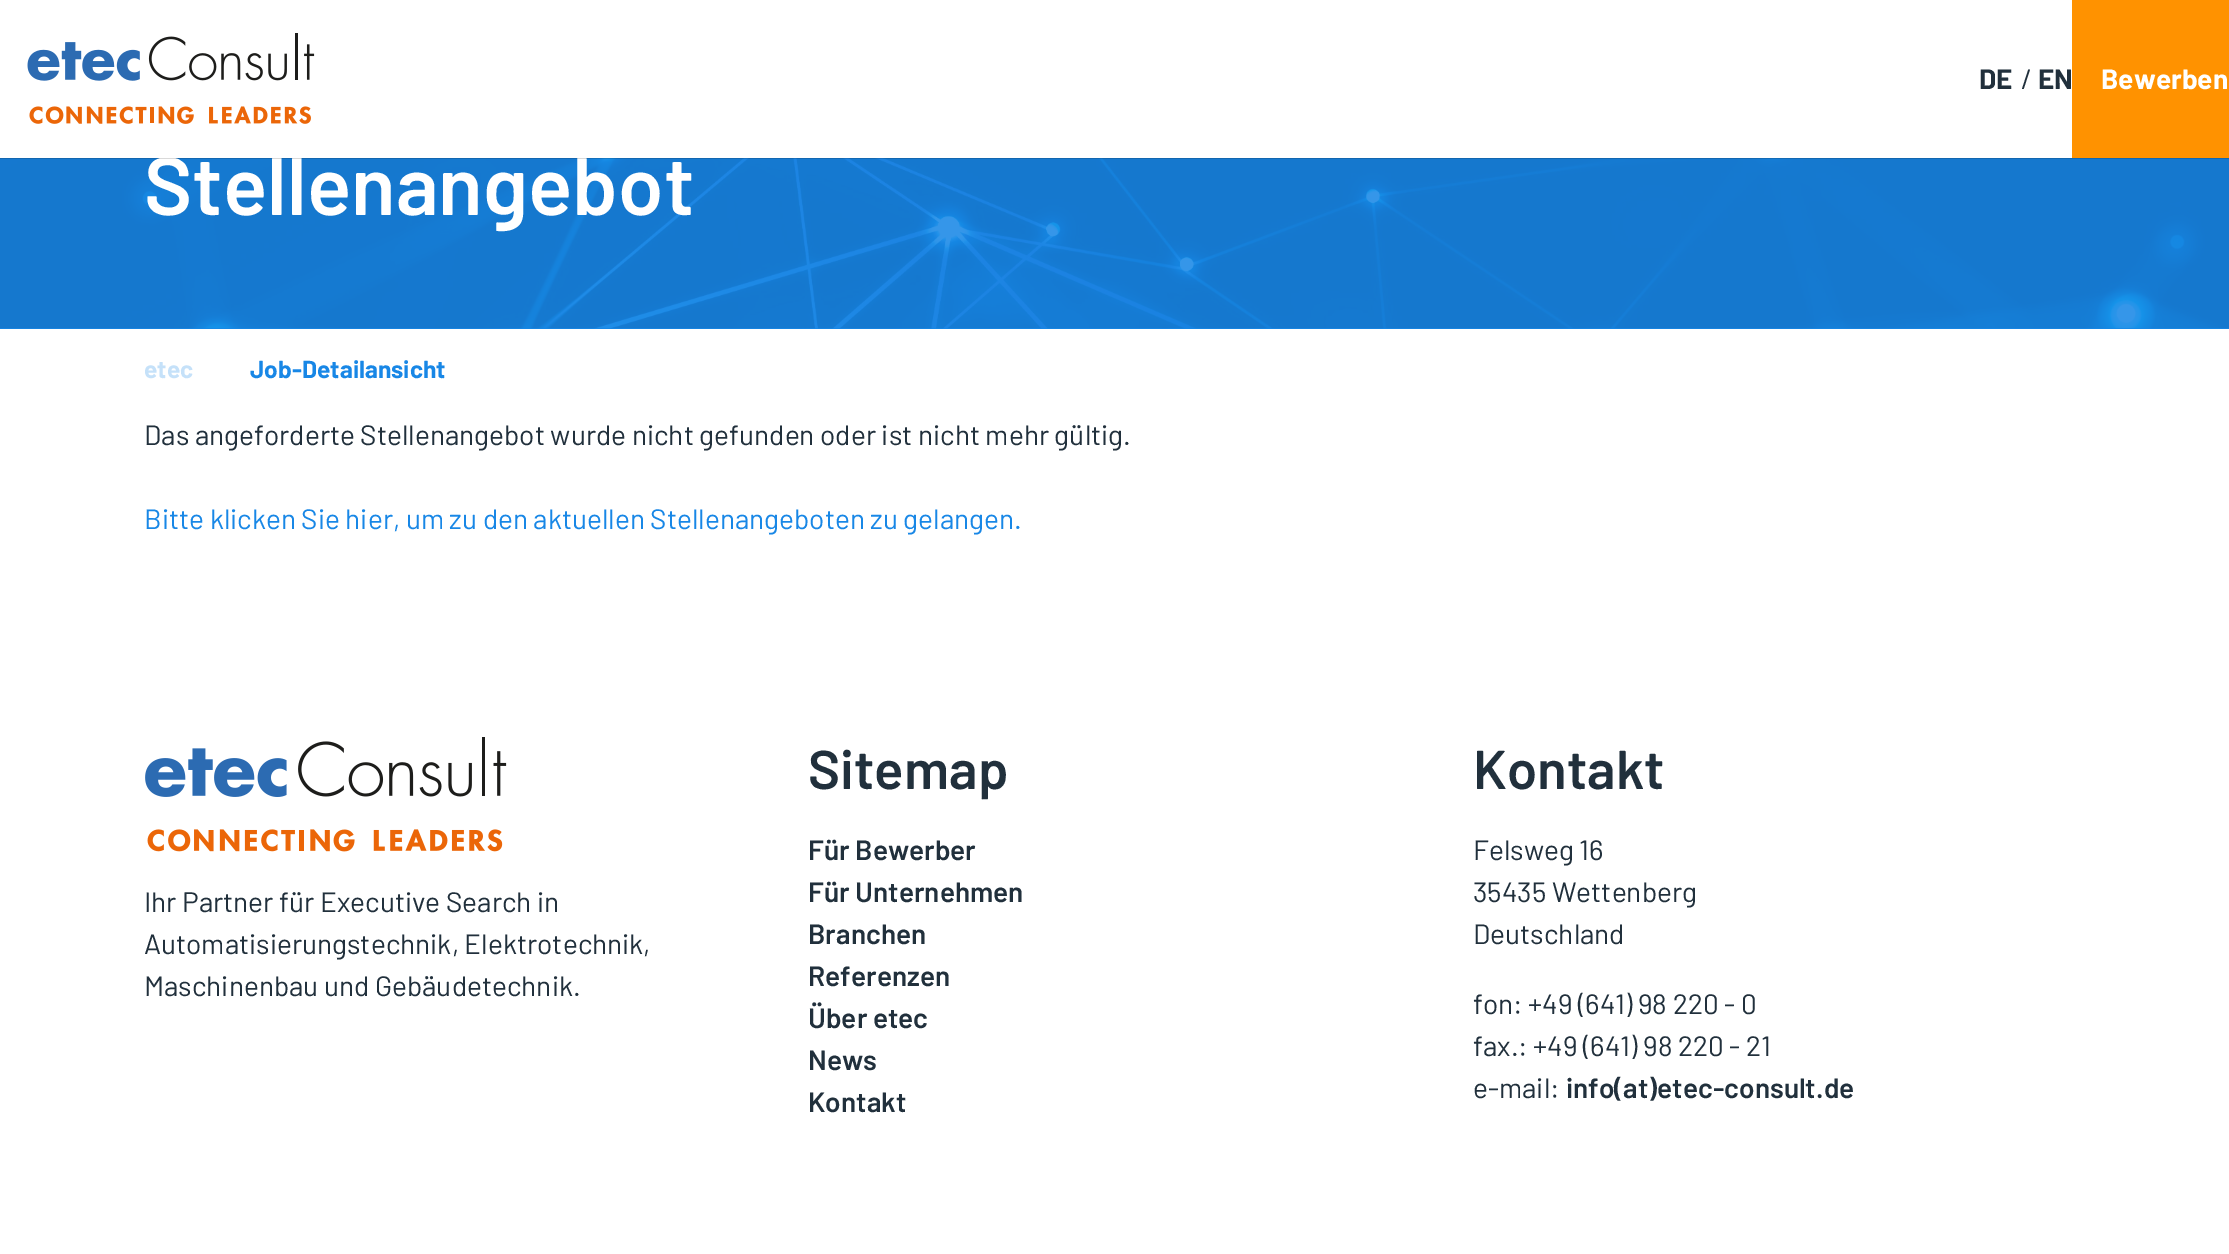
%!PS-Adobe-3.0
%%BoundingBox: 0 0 2229 1254
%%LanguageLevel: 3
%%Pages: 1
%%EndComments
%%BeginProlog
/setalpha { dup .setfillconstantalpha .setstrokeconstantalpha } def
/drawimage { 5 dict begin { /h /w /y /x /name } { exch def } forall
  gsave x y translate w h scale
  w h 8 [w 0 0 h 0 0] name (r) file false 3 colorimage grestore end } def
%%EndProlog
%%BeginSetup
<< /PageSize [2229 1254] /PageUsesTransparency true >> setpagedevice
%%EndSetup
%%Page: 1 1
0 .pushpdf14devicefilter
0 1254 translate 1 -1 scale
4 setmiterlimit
1 setgray
0 0 2229 1254 rectfill
(images/1.raw) 27 33 288 91 drawimage
1 0.573 0 setrgbcolor
2072 0 157 158 rectfill
0.094 0.529 0.902 setrgbcolor
0 158 2229 171 rectfill
(images/2.raw) 0 158 2229 171 drawimage
(images/3.raw) 145 737 362 115 drawimage
/Barlow-Bold [28 0 0 -28 0 0] selectfont
0.129 0.188 0.235 setrgbcolor
1979 89 moveto (DE) show
/Barlow-Regular [28 0 0 -28 0 0] selectfont
2021 89 moveto (/) show
/Barlow-Bold [28 0 0 -28 0 0] selectfont
2038 89 moveto (EN) show
1 setgray
2101 89 moveto (Bewerben) show
/Barlow-SemiBold [82 0 0 -82 0 0] selectfont
144 215 moveto (Stellenangebot) show
0.15 setalpha
0 setgray
newpath 0 158 moveto 0 159 lineto 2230 159 lineto 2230 2 lineto 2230 158 lineto closepath fill
/Barlow-Bold [24.5 0 0 -24.5 0 0] selectfont
1 setalpha
0.773 0.882 0.976 setrgbcolor
144 378 moveto (etec) show
0.094 0.529 0.902 setrgbcolor
250 378 moveto (Job-Detailansicht) show
/Barlow-Regular [28 0 0 -28 0 0] selectfont
0.129 0.188 0.235 setrgbcolor
144 445 moveto (Das angeforderte Stellenangebot wurde nicht gefunden oder ist nicht mehr gültig.) show
0.094 0.529 0.902 setrgbcolor
144 529 moveto (Bitte klicken Sie hier, um zu den aktuellen Stellenangeboten zu gelangen.) show
0.129 0.188 0.235 setrgbcolor
144 912 moveto (Ihr Partner für Executive Search in) show
144 954 moveto (Automatisierungstechnik, Elektrotechnik,) show
144 996 moveto (Maschinenbau und Gebäudetechnik.) show
/Barlow-SemiBold [54.5 0 0 -54.5 0 0] selectfont
808 789 moveto (Sitemap) show
/Barlow-SemiBold [28 0 0 -28 0 0] selectfont
808 860 moveto (Für Bewerber) show
808 902 moveto (Für Unternehmen) show
808 944 moveto (Branchen) show
808 986 moveto (Referenzen) show
808 1028 moveto (Über etec) show
808 1070 moveto (News) show
808 1112 moveto (Kontakt) show
/Barlow-SemiBold [54.5 0 0 -54.5 0 0] selectfont
1473 789 moveto (Kontakt) show
/Barlow-Regular [28 0 0 -28 0 0] selectfont
1473 860 moveto (Felsweg 16) show
1473 902 moveto (35435 Wettenberg) show
1473 944 moveto (Deutschland) show
1473 1014 moveto (fon: +49 \(641\) 98 220 - 0) show
1473 1056 moveto (fax.: +49 \(641\) 98 220 - 21) show
1473 1098 moveto (e-mail:) show
/Barlow-SemiBold [28 0 0 -28 0 0] selectfont
1566 1098 moveto (info\(at\)etec-consult.de) show
.poppdf14devicefilter showpage
%%EOF
